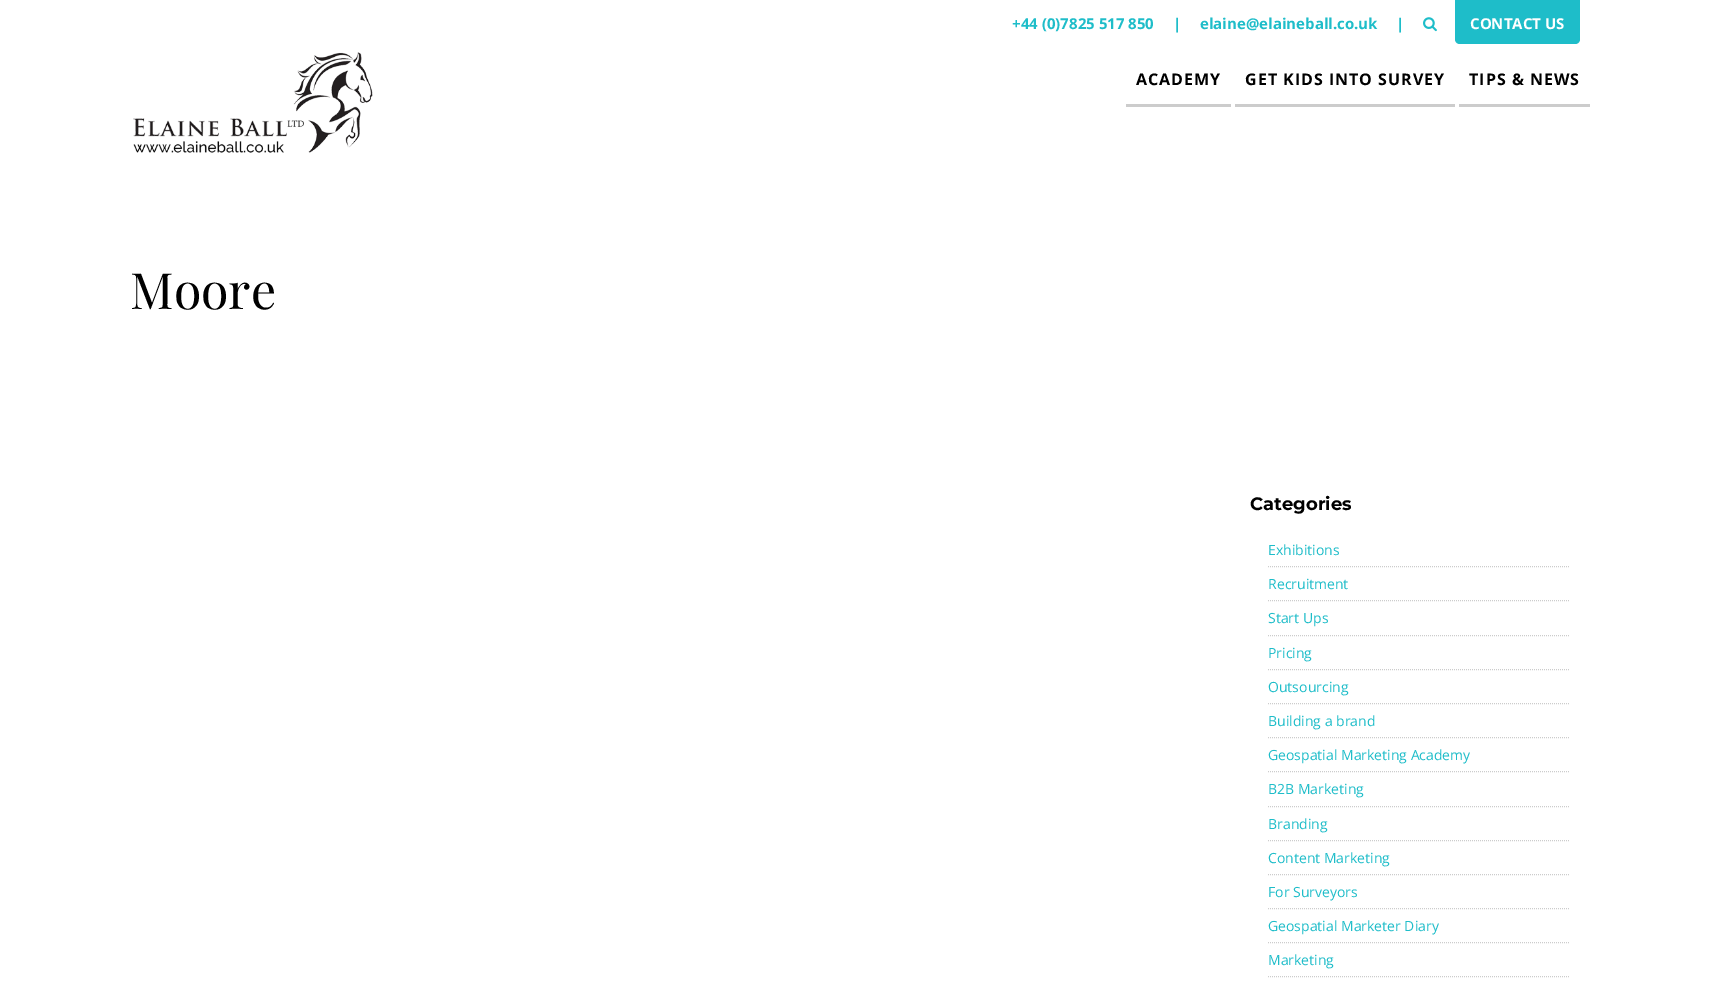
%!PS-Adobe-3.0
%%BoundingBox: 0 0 1709 994
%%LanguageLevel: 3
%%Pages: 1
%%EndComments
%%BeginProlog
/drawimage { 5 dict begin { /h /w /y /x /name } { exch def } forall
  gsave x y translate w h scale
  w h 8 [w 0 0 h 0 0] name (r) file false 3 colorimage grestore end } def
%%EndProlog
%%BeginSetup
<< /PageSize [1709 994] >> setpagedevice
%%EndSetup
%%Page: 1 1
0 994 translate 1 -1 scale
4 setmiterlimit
1 setgray
0 0 1709 994 rectfill
(images/1.raw) 1423 17 14 15 drawimage
0.118 0.741 0.788 setrgbcolor
newpath 1455 0 moveto 1580 0 lineto 1580 39 lineto 1580 42 1578 44 1575 44 curveto 1460 44 lineto 1457 44 1455 42 1455 39 curveto closepath fill
0.8 setgray
1126 104 105 3 rectfill
1235 104 220 3 rectfill
1459 104 131 3 rectfill
(images/2.raw) 133 52 240 101 drawimage
[1 1] 0 setdash
newpath 1268 566.5 moveto 1570 566.5 lineto stroke
newpath 1268 600.5 moveto 1570 600.5 lineto stroke
newpath 1268 635.5 moveto 1570 635.5 lineto stroke
newpath 1268 669.5 moveto 1570 669.5 lineto stroke
newpath 1268 703.5 moveto 1570 703.5 lineto stroke
newpath 1268 737.5 moveto 1570 737.5 lineto stroke
newpath 1268 771.5 moveto 1570 771.5 lineto stroke
newpath 1268 806.5 moveto 1570 806.5 lineto stroke
newpath 1268 840.5 moveto 1570 840.5 lineto stroke
newpath 1268 874.5 moveto 1570 874.5 lineto stroke
newpath 1268 908.5 moveto 1570 908.5 lineto stroke
newpath 1268 942.5 moveto 1570 942.5 lineto stroke
newpath 1268 976.5 moveto 1570 976.5 lineto stroke
/OpenSans-Bold [15 0 0 -15 0 0] selectfont
0.118 0.741 0.788 setrgbcolor
1012 29 moveto (+44 \(0\)7825 517 850) show
1173 29 moveto (|) show
1200 29 moveto (elaine@elaineball.co.uk) show
1396 29 moveto (|) show
1 setgray
1470 29 moveto (CONTACT US) show
/OpenSans-Bold [16 0 0 -16 0 0] selectfont
0 setgray
1136 85 moveto 1 0 (ACADEMY) ashow
1245 85 moveto 1 0 (GET KIDS INTO SURVEY) ashow
1469 85 moveto 1 0 (TIPS & NEWS) ashow
/PlayfairDisplay-Regular [50 0 0 -50 0 0] selectfont
130 309 moveto (Moore) show
/Montserrat-Bold [18 0 0 -18 0 0] selectfont
1250 510 moveto (Categories) show
/OpenSans-Regular [14 0 0 -14 0 0] selectfont
0.118 0.741 0.788 setrgbcolor
1268 555 moveto (Exhibitions) show
1268 589 moveto (Recruitment) show
1268 623 moveto (Start Ups) show
1268 658 moveto (Pricing) show
1268 692 moveto (Outsourcing) show
1268 726 moveto (Building a brand) show
1268 760 moveto (Geospatial Marketing Academy) show
1268 794 moveto (B2B Marketing) show
1268 829 moveto (Branding) show
1268 863 moveto (Content Marketing) show
1268 897 moveto (For Surveyors) show
1268 931 moveto (Geospatial Marketer Diary) show
1268 965 moveto (Marketing) show
showpage
%%EOF
